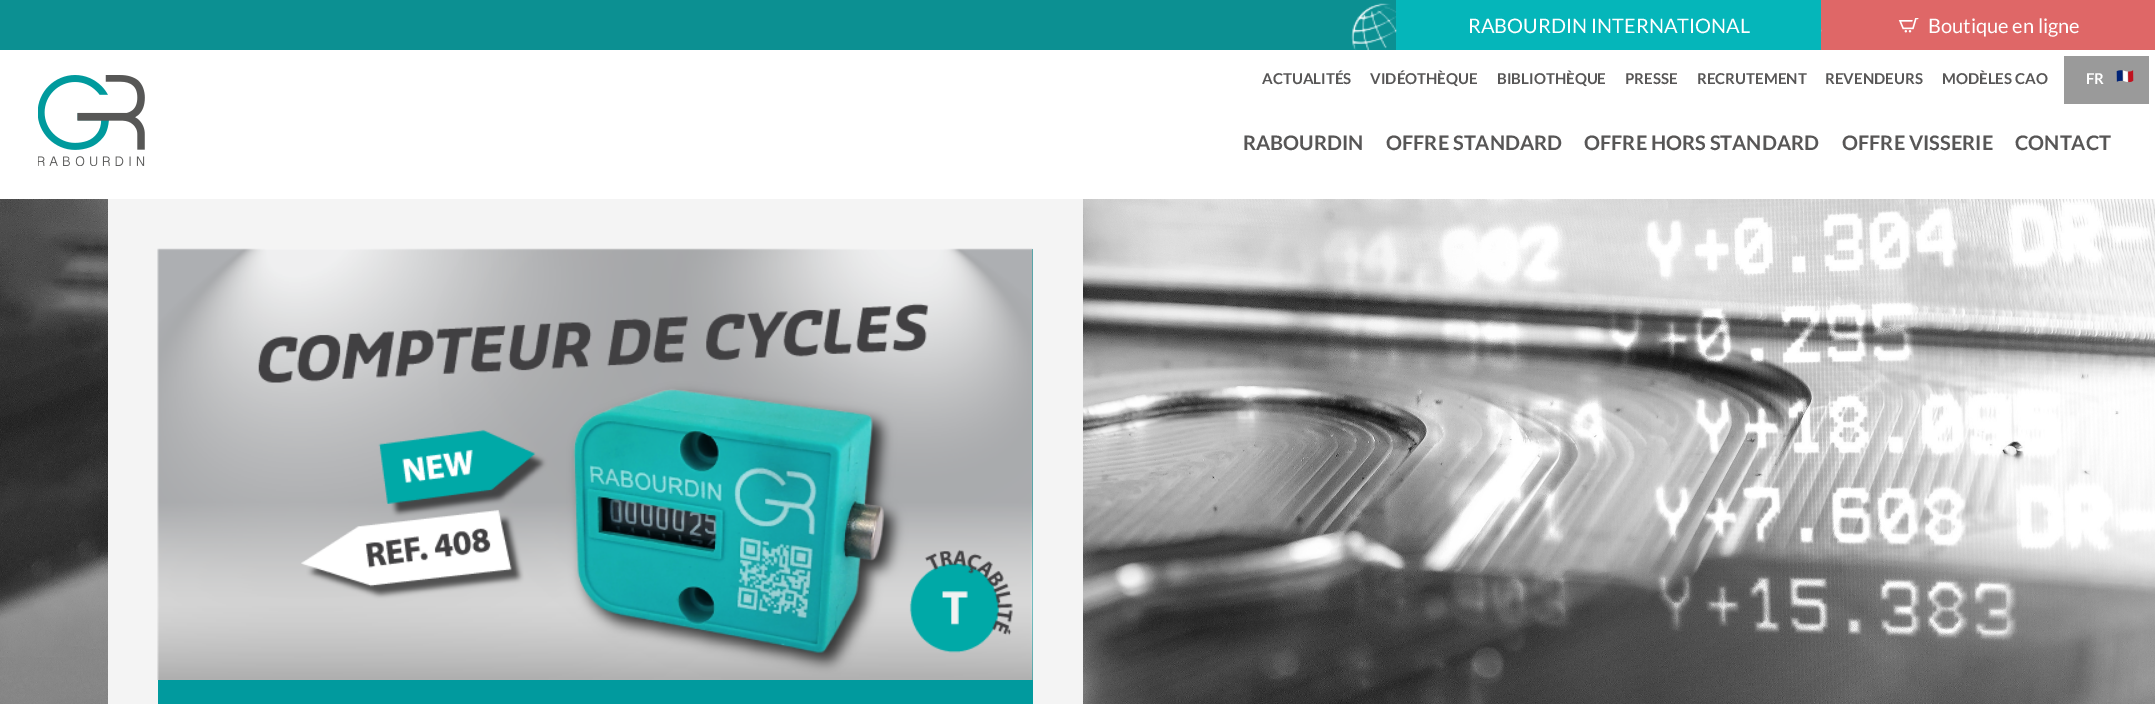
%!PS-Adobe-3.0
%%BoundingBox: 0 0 2155 704
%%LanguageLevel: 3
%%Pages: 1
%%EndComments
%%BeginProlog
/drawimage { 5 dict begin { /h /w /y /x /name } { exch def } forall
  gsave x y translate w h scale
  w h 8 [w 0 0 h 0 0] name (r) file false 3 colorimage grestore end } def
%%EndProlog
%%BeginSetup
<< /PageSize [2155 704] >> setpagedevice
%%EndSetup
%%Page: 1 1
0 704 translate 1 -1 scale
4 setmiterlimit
1 setgray
0 0 2155 704 rectfill
0.047 0.565 0.573 setrgbcolor
0 0 1396 50 rectfill
0.02 0.714 0.729 setrgbcolor
1396 0 425 50 rectfill
(images/1.raw) 1351 3 46 47 drawimage
0.875 0.404 0.404 setrgbcolor
1821 0 334 50 rectfill
(images/2.raw) 1821 11 1 22 drawimage
(images/3.raw) 1898 18 21 15 drawimage
(images/4.raw) 38 75 107 91 drawimage
0.604 setgray
2064 56 85 48 rectfill
(images/5.raw) 2116 70 18 13 drawimage
(images/6.raw) 0 199 2155 505 drawimage
0.957 setgray
108 199 975 505 rectfill
0.004 0.604 0.62 setrgbcolor
158 249 875 455 rectfill
(images/7.raw) 157 248 876 432 drawimage
/Lato-Regular [20 0 0 -20 0 0] selectfont
1 setgray
1468 33 moveto (RABOURDIN INTERNATIONAL) show
1928 33 moveto (Boutique en ligne) show
/Lato-Bold [15 0 0 -15 0 0] selectfont
0.341 0.337 0.337 setrgbcolor
1262 84 moveto (ACTUALITÉS) show
1370 84 moveto (VIDÉOTHÈQUE) show
1497 84 moveto (BIBLIOTHÈQUE) show
1625 84 moveto (PRESSE) show
1697 84 moveto (RECRUTEMENT) show
1825 84 moveto (REVENDEURS) show
1942 84 moveto (MODÈLES CAO) show
1 setgray
2086 84 moveto (FR) show
/Lato-Bold [20 0 0 -20 0 0] selectfont
0.341 0.337 0.337 setrgbcolor
1243 150 moveto (RABOURDIN) show
1386 150 moveto (OFFRE STANDARD) show
1584 150 moveto (OFFRE HORS STANDARD) show
1842 150 moveto (OFFRE VISSERIE) show
2015 150 moveto (CONTACT) show
showpage
%%EOF
